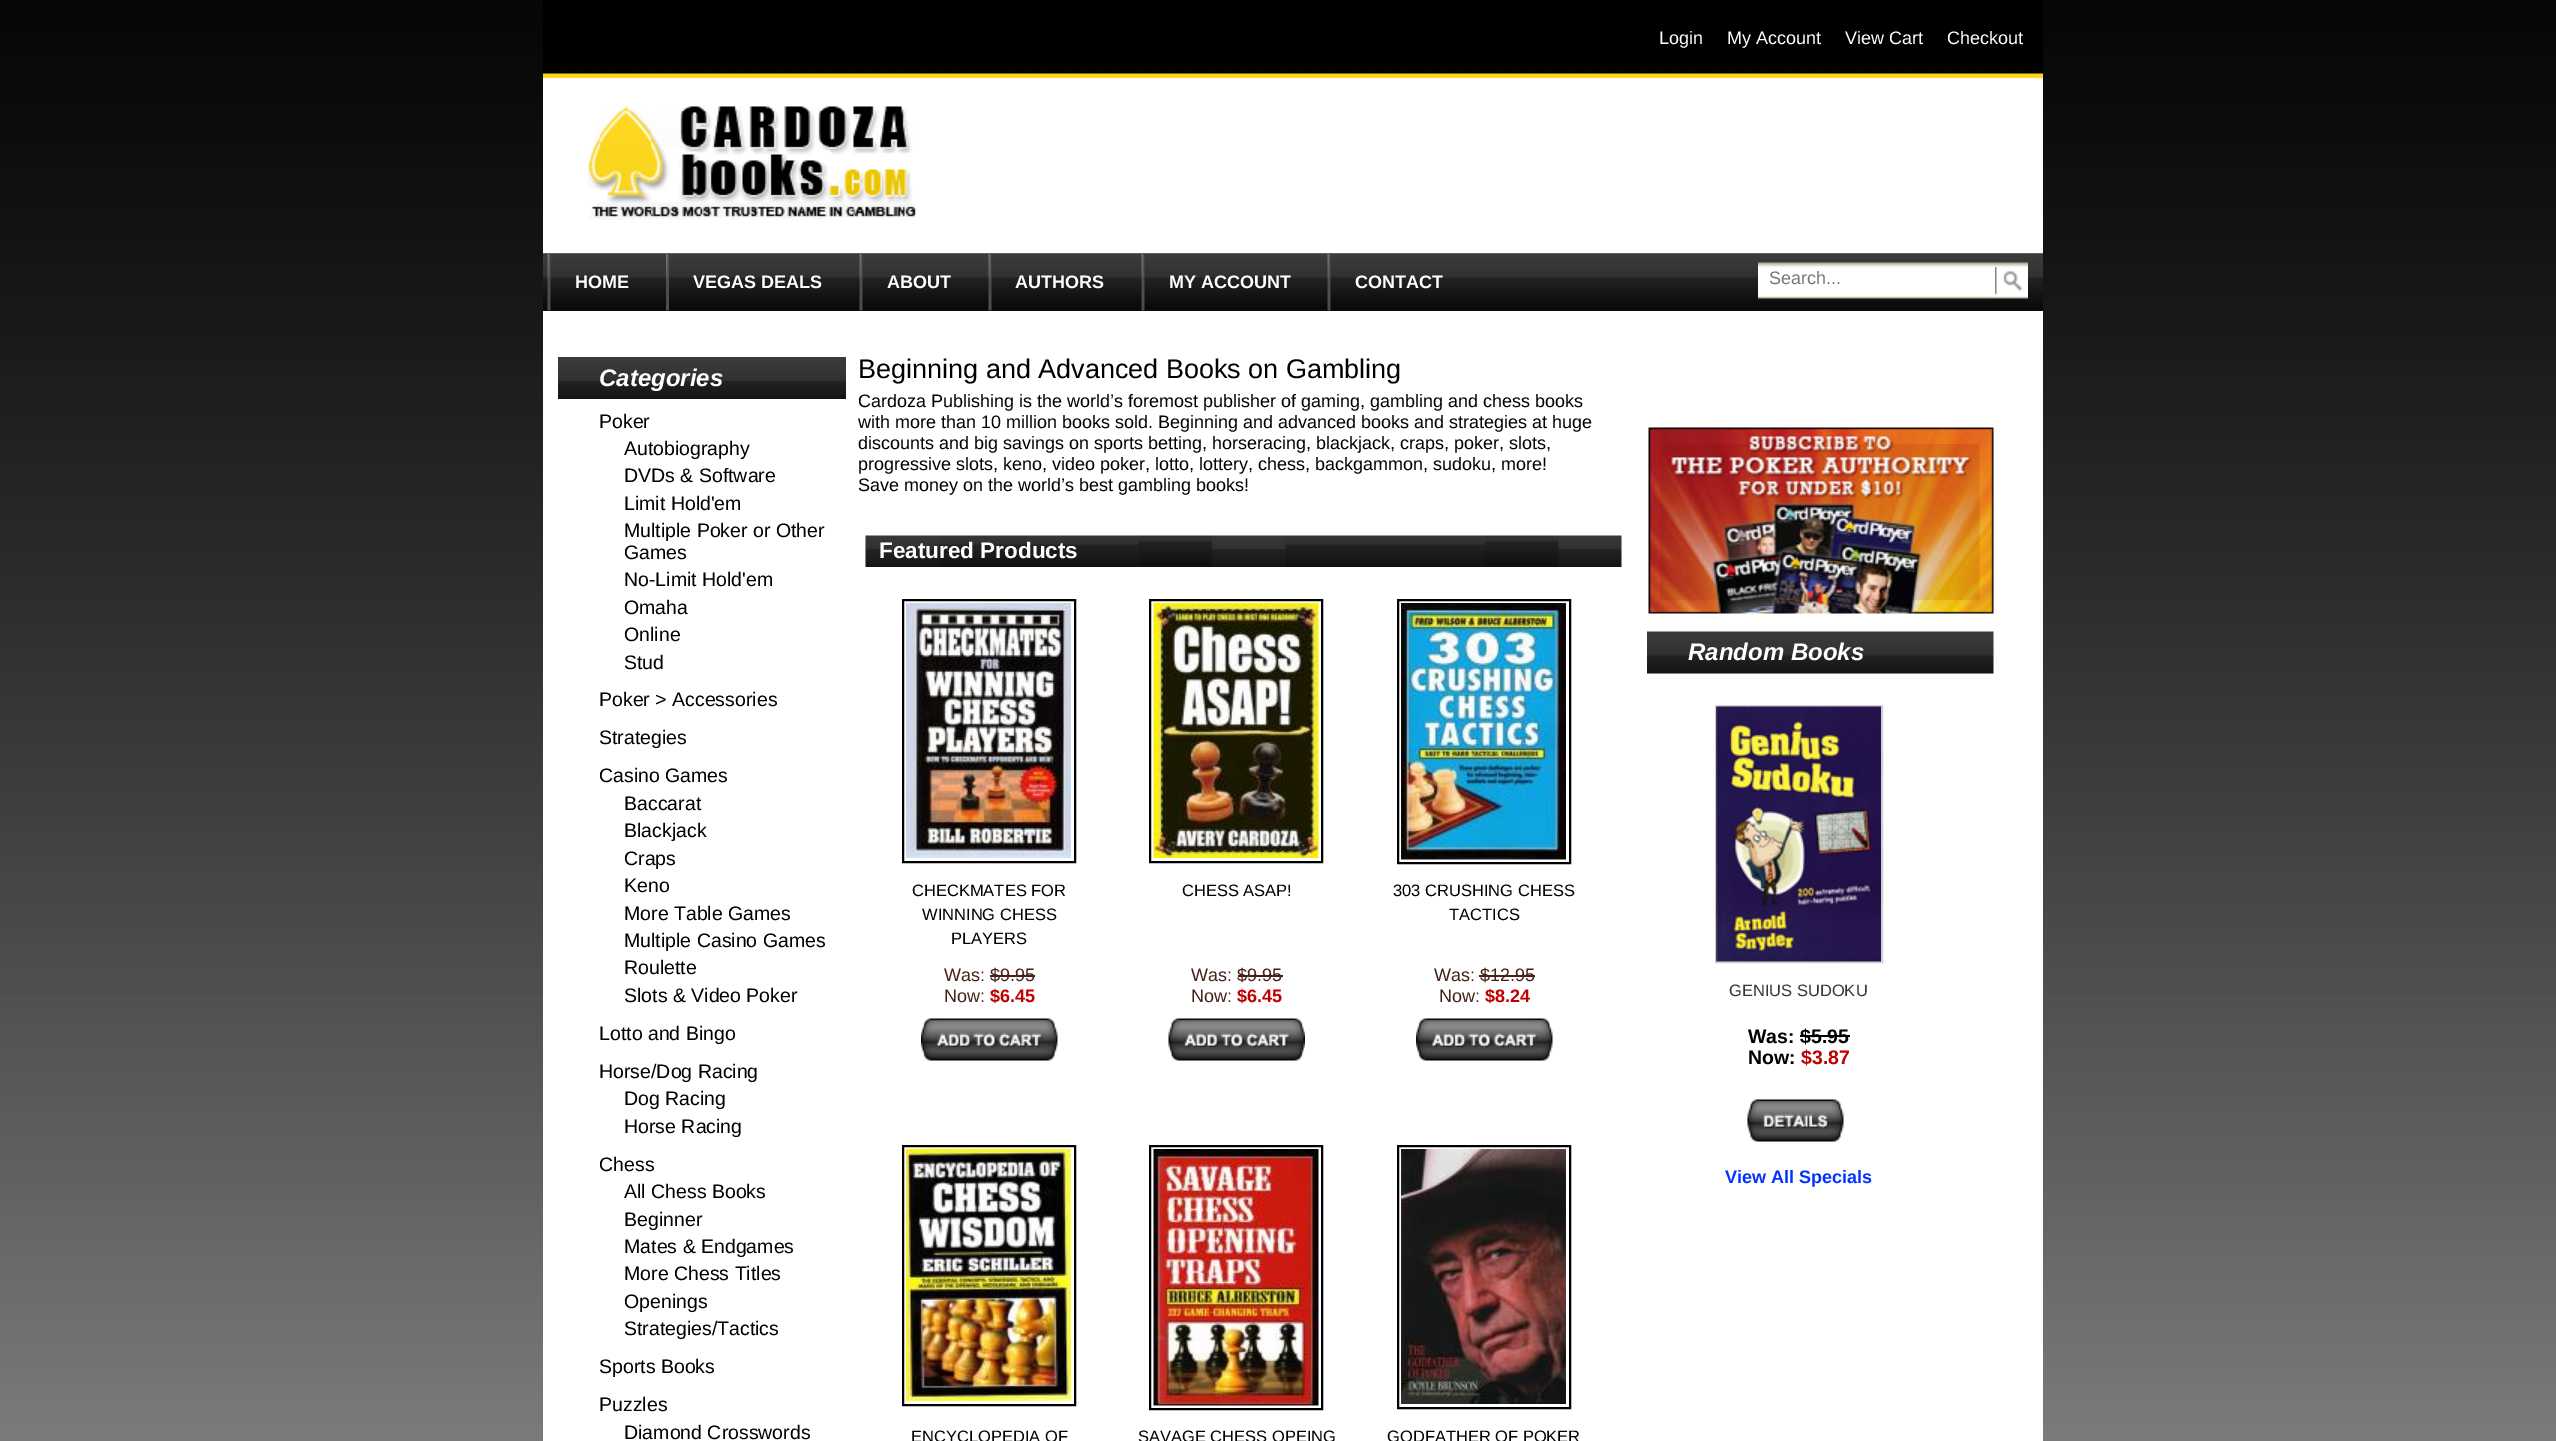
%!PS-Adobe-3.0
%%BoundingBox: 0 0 2556 1441
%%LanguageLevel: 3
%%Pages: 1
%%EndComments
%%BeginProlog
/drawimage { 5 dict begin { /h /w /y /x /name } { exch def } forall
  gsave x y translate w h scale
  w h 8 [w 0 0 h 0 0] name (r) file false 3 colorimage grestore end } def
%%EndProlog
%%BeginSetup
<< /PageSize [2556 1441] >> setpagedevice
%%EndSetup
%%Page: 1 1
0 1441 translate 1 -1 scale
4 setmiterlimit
1 setgray
0 0 2556 1441 rectfill
(images/1.raw) 0 0 2556 1441 drawimage
(images/5.raw) 543 0 1500 254 drawimage
(images/2.raw) 543 253 1500 58 drawimage
(images/3.raw) 547 253 4 58 drawimage
(images/4.raw) 666 253 3 58 drawimage
(images/3.raw) 859 253 4 58 drawimage
(images/3.raw) 988 253 4 58 drawimage
(images/3.raw) 1141 253 4 58 drawimage
(images/3.raw) 1327 253 4 58 drawimage
(images/6.raw) 587 106 329 114 drawimage
(images/7.raw) 1758 262 237 37 drawimage
(images/8.raw) 1995 262 33 37 drawimage
543 311 1500 1130 rectfill
(images/9.raw) 558 357 288 42 drawimage
(images/10.raw) 865 535 757 32 drawimage
0 setgray
2 setlinewidth
903 600 172 262 rectstroke
(images/11.raw) 906 603 165 255 drawimage
0.278 0.125 0.098 setrgbcolor
990 975 45 2 rectfill
(images/12.raw) 921 1018 137 43 drawimage
0 setgray
1150 600 172 262 rectstroke
(images/13.raw) 1153 603 166 255 drawimage
0.278 0.125 0.098 setrgbcolor
1238 975 45 2 rectfill
(images/14.raw) 1168 1018 137 43 drawimage
0 setgray
1398 600 172 263 rectstroke
(images/15.raw) 1401 603 165 257 drawimage
0.278 0.125 0.098 setrgbcolor
1479 975 56 2 rectfill
(images/12.raw) 1416 1018 137 43 drawimage
0 setgray
903 1146 172 259 rectstroke
(images/16.raw) 906 1149 165 252 drawimage
1150 1146 172 263 rectstroke
(images/17.raw) 1153 1149 166 257 drawimage
1398 1146 172 262 rectstroke
(images/18.raw) 1401 1149 165 255 drawimage
(images/19.raw) 1648 427 346 187 drawimage
(images/20.raw) 1647 631 347 43 drawimage
0.812 setgray
1716 706 166 256 rectstroke
(images/21.raw) 1716 706 165 256 drawimage
0 setgray
1800 1035 50 2 rectfill
(images/22.raw) 1747 1099 97 43 drawimage
/LiberationSans-Bold [18 0 0 -18 0 0] selectfont
1 setgray
575 288 moveto (HOME) show
693 288 moveto (VEGAS DEALS) show
887 288 moveto (ABOUT) show
1015 288 moveto (AUTHORS) show
1169 288 moveto (MY ACCOUNT) show
1355 288 moveto (CONTACT) show
/LiberationSans-Regular [18 0 0 -18 0 0] selectfont
1659 44 moveto (Login) show
1727 44 moveto (My Account) show
1845 44 moveto (View Cart) show
1947 44 moveto (Checkout) show
0.467 setgray
1769 284 moveto (Search...) show
/LiberationSans-BoldItalic [24 0 0 -24 0 0] selectfont
1 setgray
599 386 moveto (Categories) show
/LiberationSans-Regular [19.5 0 0 -19.5 0 0] selectfont
0 setgray
599 428 moveto (Poker) show
624 455 moveto (Autobiography) show
624 482 moveto (DVDs & Software) show
624 510 moveto (Limit Hold'em) show
624 537 moveto (Multiple Poker or Other) show
624 559 moveto (Games) show
624 586 moveto (No-Limit Hold'em) show
624 614 moveto (Omaha) show
624 641 moveto (Online) show
624 669 moveto (Stud) show
599 706 moveto (Poker > Accessories) show
599 744 moveto (Strategies) show
599 782 moveto (Casino Games) show
624 810 moveto (Baccarat) show
624 837 moveto (Blackjack) show
624 865 moveto (Craps) show
624 892 moveto (Keno) show
624 920 moveto (More Table Games) show
624 947 moveto (Multiple Casino Games) show
624 974 moveto (Roulette) show
624 1002 moveto (Slots & Video Poker) show
599 1040 moveto (Lotto and Bingo) show
599 1078 moveto (Horse/Dog Racing) show
624 1105 moveto (Dog Racing) show
624 1133 moveto (Horse Racing) show
599 1171 moveto (Chess) show
624 1198 moveto (All Chess Books) show
624 1226 moveto (Beginner) show
624 1253 moveto (Mates & Endgames) show
624 1280 moveto (More Chess Titles) show
624 1308 moveto (Openings) show
624 1335 moveto (Strategies/Tactics) show
599 1373 moveto (Sports Books) show
599 1411 moveto (Puzzles) show
624 1439 moveto (Diamond Crosswords) show
/LiberationSans-Regular [27 0 0 -27 0 0] selectfont
858 378 moveto (Beginning and Advanced Books on Gambling) show
/LiberationSans-Regular [18 0 0 -18 0 0] selectfont
858 407 moveto (Cardoza Publishing is the world’s foremost publisher of gaming, gambling and chess books) show
858 428 moveto (with more than 10 million books sold. Beginning and advanced books and strategies at huge) show
858 449 moveto (discounts and big savings on sports betting, horseracing, blackjack, craps, poker, slots,) show
858 470 moveto (progressive slots, keno, video poker, lotto, lottery, chess, backgammon, sudoku, more!) show
858 491 moveto (Save money on the world’s best gambling books!) show
/LiberationSans-Bold [22.5 0 0 -22.5 0 0] selectfont
1 setgray
879 558 moveto (Featured Products) show
/LiberationSans-Regular [16.5 0 0 -16.5 0 0] selectfont
0 setgray
912 896 moveto (CHECKMATES FOR) show
922 920 moveto (WINNING CHESS) show
951 944 moveto (PLAYERS) show
/LiberationSans-Regular [18 0 0 -18 0 0] selectfont
0.278 0.125 0.098 setrgbcolor
944 981 moveto (Was: $9.95) show
944 1002 moveto (Now:) show
/LiberationSans-Bold [18 0 0 -18 0 0] selectfont
0.753 0 0 setrgbcolor
990 1002 moveto ($6.45) show
/LiberationSans-Regular [16.5 0 0 -16.5 0 0] selectfont
0 setgray
1182 896 moveto (CHESS ASAP!) show
/LiberationSans-Regular [18 0 0 -18 0 0] selectfont
0.278 0.125 0.098 setrgbcolor
1191 981 moveto (Was: $9.95) show
1191 1002 moveto (Now:) show
/LiberationSans-Bold [18 0 0 -18 0 0] selectfont
0.753 0 0 setrgbcolor
1237 1002 moveto ($6.45) show
/LiberationSans-Regular [16.5 0 0 -16.5 0 0] selectfont
0 setgray
1393 896 moveto (303 CRUSHING CHESS) show
1449 920 moveto (TACTICS) show
/LiberationSans-Regular [18 0 0 -18 0 0] selectfont
0.278 0.125 0.098 setrgbcolor
1434 981 moveto (Was: $12.95) show
1439 1002 moveto (Now:) show
/LiberationSans-Bold [18 0 0 -18 0 0] selectfont
0.753 0 0 setrgbcolor
1485 1002 moveto ($8.24) show
/LiberationSans-Regular [16.5 0 0 -16.5 0 0] selectfont
0 setgray
911 1442 moveto (ENCYCLOPEDIA OF) show
1138 1442 moveto (SAVAGE CHESS OPEING) show
1387 1442 moveto (GODFATHER OF POKER) show
/LiberationSans-BoldItalic [24 0 0 -24 0 0] selectfont
1 setgray
1688 660 moveto (Random Books) show
/LiberationSans-Regular [16.5 0 0 -16.5 0 0] selectfont
0.208 setgray
1729 996 moveto (GENIUS SUDOKU) show
/LiberationSans-Bold [19.5 0 0 -19.5 0 0] selectfont
0 setgray
1748 1043 moveto (Was: $5.95) show
1748 1064 moveto (Now:) show
0.753 0 0 setrgbcolor
1801 1064 moveto ($3.87) show
/LiberationSans-Bold [18 0 0 -18 0 0] selectfont
0 0.2 1 setrgbcolor
1725 1183 moveto (View All Specials) show
showpage
%%EOF
